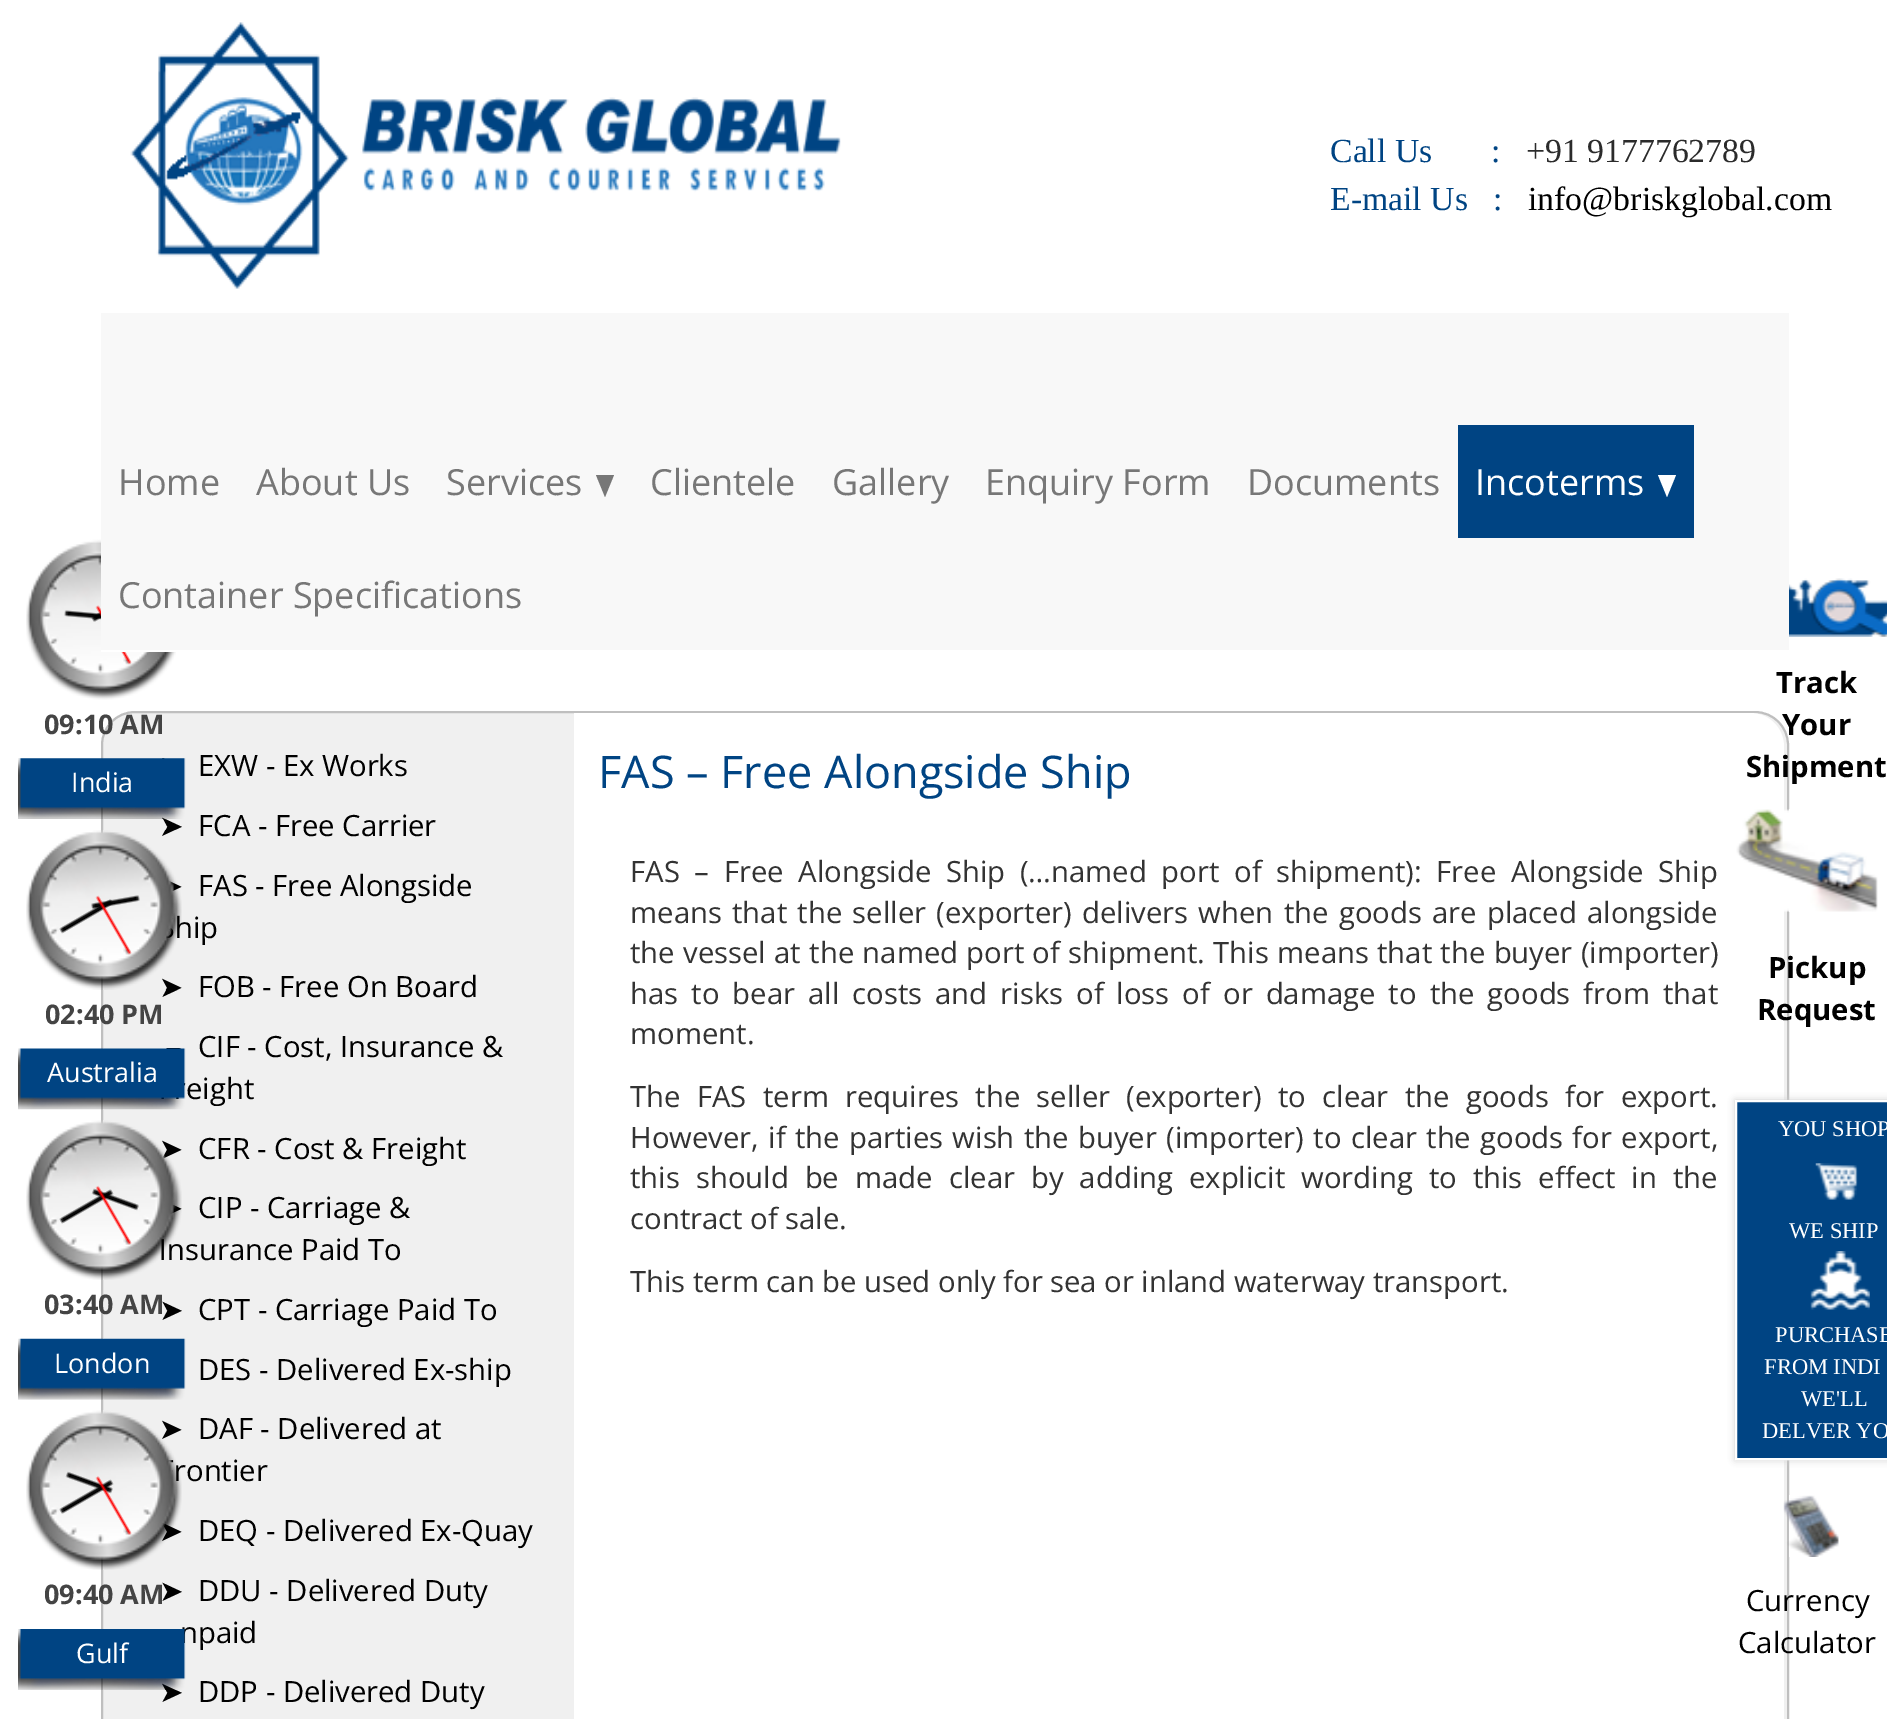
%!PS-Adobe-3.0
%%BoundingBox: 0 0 1887 1719
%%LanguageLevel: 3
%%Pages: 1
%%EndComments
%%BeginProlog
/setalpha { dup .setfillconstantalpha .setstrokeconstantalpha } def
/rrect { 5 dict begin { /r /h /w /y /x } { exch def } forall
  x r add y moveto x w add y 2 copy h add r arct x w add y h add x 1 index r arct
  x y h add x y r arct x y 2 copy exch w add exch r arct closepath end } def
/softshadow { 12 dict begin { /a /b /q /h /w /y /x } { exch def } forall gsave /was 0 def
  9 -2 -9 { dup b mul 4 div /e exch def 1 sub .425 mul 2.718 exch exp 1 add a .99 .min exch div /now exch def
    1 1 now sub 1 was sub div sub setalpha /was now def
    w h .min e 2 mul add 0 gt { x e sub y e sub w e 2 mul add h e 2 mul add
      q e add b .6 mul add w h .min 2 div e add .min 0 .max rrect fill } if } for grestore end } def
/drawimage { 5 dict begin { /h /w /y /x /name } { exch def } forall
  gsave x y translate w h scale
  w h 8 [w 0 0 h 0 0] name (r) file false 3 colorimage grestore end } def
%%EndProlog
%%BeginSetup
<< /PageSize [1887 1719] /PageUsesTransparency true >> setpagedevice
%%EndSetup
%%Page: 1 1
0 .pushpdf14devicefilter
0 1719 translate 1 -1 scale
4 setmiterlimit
1 setgray
0 0 1887 1719 rectfill
(images/1.raw) 130 22 711 267 drawimage
(images/2.raw) 26 539 150 161 drawimage
(images/3.raw) 64 610 37 10 drawimage
(images/5.raw) 91 611 10 11 drawimage
(images/4.raw) 95 605 37 60 drawimage
0.973 setgray
101 313 1688 337 rectfill
1 setgray
101 650 75 2 rectfill
0.467 setgray
newpath 596 475 moveto 614 475 lineto 605 497 lineto closepath fill
0 0.267 0.514 setrgbcolor
1458 425 236 113 rectfill
1 setgray
newpath 1658 475 moveto 1676 475 lineto 1667 497 lineto closepath fill
0.941 setgray
102 712 1686 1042 33 rrect gsave fill grestore
0.749 setgray
2 setlinewidth
stroke
(images/11.raw) 18 1048 168 62 drawimage
(images/16.raw) 18 1338 168 62 drawimage
1 setgray
newpath 574 713 moveto 1750 713 lineto 1769 713 1784 728 1784 747 curveto 1784 1719 lineto 1784 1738 1769 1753 1750 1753 curveto 574 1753 lineto closepath fill
(images/22.raw) 1789 578 98 59 drawimage
(images/23.raw) 1736 809 142 103 drawimage
0.8 setgray
1735 1100 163 360 0 3.5 1 softshadow
0 0.267 0.514 setrgbcolor
newpath 1736 1101 moveto 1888 1101 lineto 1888 1459 lineto 1736 1459 lineto closepath gsave fill grestore
1 setgray
stroke
(images/24.raw) 1815 1163 43 37 drawimage
(images/25.raw) 1810 1251 60 59 drawimage
(images/26.raw) 1783 1495 56 62 drawimage
/LiberationSerif-Regular [33.75 0 0 -33.75 0 0] selectfont
0 0.267 0.514 setrgbcolor
1330 162 moveto (Call Us       :) show
0.169 setgray
1526 162 moveto (+91 9177762789) show
0 0.267 0.514 setrgbcolor
1330 210 moveto (E-mail Us   :) show
0 setgray
1528 210 moveto (info@briskglobal.com) show
/OpenSans-Regular [36 0 0 -36 0 0] selectfont
0.467 setgray
118 495 moveto (Home) show
256 495 moveto (About Us) show
446 495 moveto (Services) show
650 495 moveto (Clientele) show
832 495 moveto (Gallery) show
985 495 moveto (Enquiry Form) show
1247 495 moveto (Documents) show
1 setgray
1475 495 moveto (Incoterms) show
0.467 setgray
118 608 moveto (Container Specifications) show
/OpenSans-Bold [27 0 0 -27 0 0] selectfont
0.267 setgray
44 734 moveto (09:10 AM) show
45 1024 moveto (02:40 PM) show
/OpenSans-Regular [27 0 0 -27 0 0] selectfont
1 setgray
47 1082 moveto (Australia) show
54 1373 moveto (London) show
/OpenSans-Regular [29.25 0 0 -29.25 0 0] selectfont
0 setgray
198 776 moveto (EXW - Ex Works) show
/DejaVuSans-Regular [29.25 0 0 -29.25 0 0] selectfont
159 836 moveto (➤) show
(images/6.raw) 18 758 168 61 drawimage
/OpenSans-Regular [27 0 0 -27 0 0] selectfont
1 setgray
71 792 moveto (India) show
/OpenSans-Regular [29.25 0 0 -29.25 0 0] selectfont
0 setgray
198 836 moveto (FCA - Free Carrier) show
198 896 moveto (FAS - Free Alongside) show
175 938 moveto (hip) show
/DejaVuSans-Regular [29.25 0 0 -29.25 0 0] selectfont
159 997 moveto (➤) show
(images/7.raw) 26 830 156 160 drawimage
(images/8.raw) 91 895 49 15 drawimage
(images/9.raw) 59 899 54 35 drawimage
(images/10.raw) 95 895 37 60 drawimage
/OpenSans-Regular [29.25 0 0 -29.25 0 0] selectfont
198 997 moveto (FOB - Free On Board) show
198 1057 moveto (CIF - Cost, Insurance &) show
186 1099 moveto (eight) show
/DejaVuSans-Regular [29.25 0 0 -29.25 0 0] selectfont
159 1159 moveto (➤) show
/OpenSans-Regular [29.25 0 0 -29.25 0 0] selectfont
198 1159 moveto (CFR - Cost & Freight) show
198 1218 moveto (CIP - Carriage &) show
159 1260 moveto (Insurance Paid To) show
(images/12.raw) 26 1120 156 160 drawimage
(images/15.raw) 91 1188 48 23 drawimage
(images/14.raw) 59 1189 55 35 drawimage
(images/13.raw) 95 1185 37 60 drawimage
/DejaVuSans-Regular [29.25 0 0 -29.25 0 0] selectfont
159 1320 moveto (➤) show
/OpenSans-Bold [27 0 0 -27 0 0] selectfont
0.267 setgray
44 1314 moveto (03:40 AM) show
/OpenSans-Regular [29.25 0 0 -29.25 0 0] selectfont
0 setgray
198 1320 moveto (CPT - Carriage Paid To) show
198 1380 moveto (DES - Delivered Ex-ship) show
/DejaVuSans-Regular [29.25 0 0 -29.25 0 0] selectfont
159 1439 moveto (➤) show
/OpenSans-Regular [29.25 0 0 -29.25 0 0] selectfont
198 1439 moveto (DAF - Delivered at) show
174 1481 moveto (rontier) show
/DejaVuSans-Regular [29.25 0 0 -29.25 0 0] selectfont
159 1541 moveto (➤) show
(images/17.raw) 26 1410 156 160 drawimage
(images/18.raw) 65 1471 48 23 drawimage
(images/20.raw) 59 1479 55 35 drawimage
(images/19.raw) 95 1476 37 59 drawimage
/OpenSans-Regular [29.25 0 0 -29.25 0 0] selectfont
198 1541 moveto (DEQ - Delivered Ex-Quay) show
/DejaVuSans-Regular [29.25 0 0 -29.25 0 0] selectfont
159 1601 moveto (➤) show
/OpenSans-Bold [27 0 0 -27 0 0] selectfont
0.267 setgray
44 1604 moveto (09:40 AM) show
/OpenSans-Regular [29.25 0 0 -29.25 0 0] selectfont
0 setgray
198 1601 moveto (DDU - Delivered Duty) show
180 1643 moveto (npaid) show
/DejaVuSans-Regular [29.25 0 0 -29.25 0 0] selectfont
159 1702 moveto (➤) show
(images/21.raw) 18 1629 168 61 drawimage
/OpenSans-Regular [27 0 0 -27 0 0] selectfont
1 setgray
76 1663 moveto (Gulf) show
/OpenSans-Regular [29.25 0 0 -29.25 0 0] selectfont
0 setgray
198 1702 moveto (DDP - Delivered Duty) show
/OpenSans-Regular [45 0 0 -45 0 0] selectfont
0 0.267 0.514 setrgbcolor
598 788 moveto (FAS – Free Alongside Ship) show
/OpenSans-Regular [29.25 0 0 -29.25 0 0] selectfont
0.2 setgray
630 882 moveto 7.1 0 32 (FAS – Free Alongside Ship \(…named port of shipment\): Free Alongside Ship) widthshow
630 923 moveto 2.75 0 32 (means that the seller \(exporter\) delivers when the goods are placed alongside) widthshow
630 963 moveto 0.75 0 32 (the vessel at the named port of shipment. This means that the buyer \(importer\)) widthshow
630 1004 moveto 5.5 0 32 (has to bear all costs and risks of loss of or damage to the goods from that) widthshow
630 1044 moveto (moment.) show
630 1107 moveto 8.75 0 32 (The FAS term requires the seller \(exporter\) to clear the goods for export.) widthshow
630 1148 moveto 1.75 0 32 (However, if the parties wish the buyer \(importer\) to clear the goods for export,) widthshow
630 1188 moveto 8.5 0 32 (this should be made clear by adding explicit wording to this effect in the) widthshow
630 1229 moveto (contract of sale.) show
630 1292 moveto (This term can be used only for sea or inland waterway transport.) show
/OpenSans-Bold [29.25 0 0 -29.25 0 0] selectfont
0 setgray
1776 693 moveto (Track) show
1782 735 moveto (Your) show
1746 777 moveto (Shipment) show
1768 978 moveto (Pickup) show
1757 1020 moveto (Request) show
/LiberationSerif-Regular [22.5 0 0 -22.5 0 0] selectfont
1 setgray
1778 1136 moveto (YOU SHOP) show
1789 1238 moveto (WE SHIP) show
1775 1342 moveto (PURCHASE) show
1764 1374 moveto (FROM INDI) show
1801 1406 moveto (WE'LL) show
1762 1438 moveto (DELVER YO) show
/OpenSans-Regular [29.25 0 0 -29.25 0 0] selectfont
0 setgray
1746 1611 moveto (Currency) show
1738 1653 moveto (Calculator) show
.poppdf14devicefilter showpage
%%EOF
